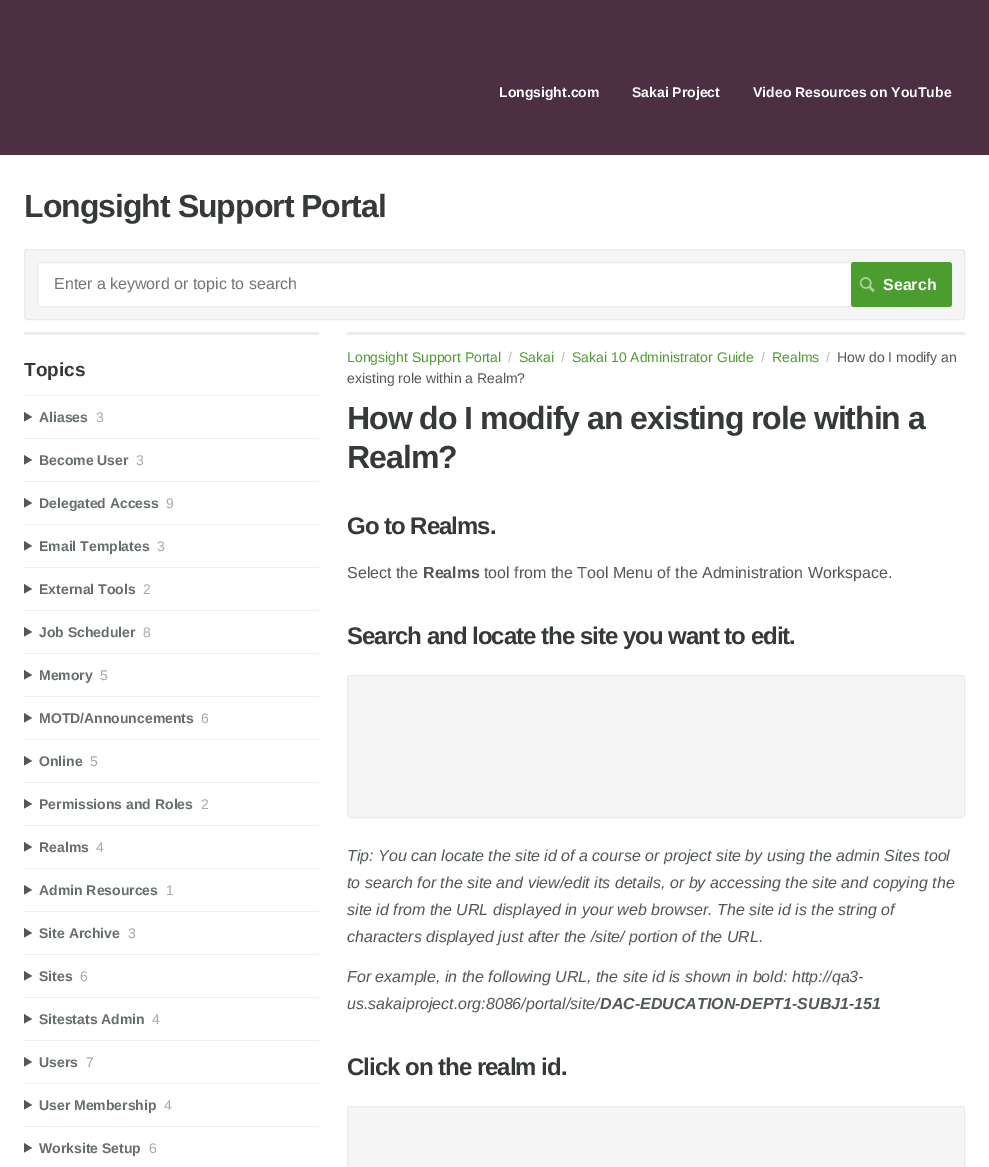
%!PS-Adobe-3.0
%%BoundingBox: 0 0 989 1167
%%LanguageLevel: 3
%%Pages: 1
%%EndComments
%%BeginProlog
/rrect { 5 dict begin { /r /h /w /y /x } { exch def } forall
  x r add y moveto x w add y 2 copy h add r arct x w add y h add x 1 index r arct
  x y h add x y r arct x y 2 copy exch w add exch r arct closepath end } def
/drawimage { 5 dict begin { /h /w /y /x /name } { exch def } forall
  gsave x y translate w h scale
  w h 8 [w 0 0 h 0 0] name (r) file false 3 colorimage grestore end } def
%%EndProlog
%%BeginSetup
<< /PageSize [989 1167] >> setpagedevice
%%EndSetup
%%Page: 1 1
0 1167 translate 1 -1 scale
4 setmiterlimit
0.298 0.188 0.255 setrgbcolor
0 0 989 1167 rectfill
1 setgray
0 155 989 1012 rectfill
0.961 setgray
24.5 249.5 940 70 2.5 rrect gsave fill grestore
0.922 setgray
stroke
1 setgray
37.5 262.5 914 44 2.5 rrect gsave fill grestore
0.922 setgray
stroke
0.298 0.616 0.184 setrgbcolor
851 262 101 45 3 rrect fill
(images/1.raw) 859 277 16 15 drawimage
0.922 setgray
24 332 295 3 rectfill
0.941 setgray
24 395 295 1 rectfill
0.318 0.345 0.341 setrgbcolor
newpath 24 412 moveto 32 417 lineto 24 421.5 lineto closepath fill
0.941 setgray
24 438 295 1 rectfill
0.318 0.345 0.341 setrgbcolor
newpath 24 455 moveto 32 460 lineto 24 464.5 lineto closepath fill
0.941 setgray
24 481 295 1 rectfill
0.318 0.345 0.341 setrgbcolor
newpath 24 498 moveto 32 503 lineto 24 507.5 lineto closepath fill
0.941 setgray
24 524 295 1 rectfill
0.318 0.345 0.341 setrgbcolor
newpath 24 541 moveto 32 546 lineto 24 550.5 lineto closepath fill
0.941 setgray
24 567 295 1 rectfill
0.318 0.345 0.341 setrgbcolor
newpath 24 584 moveto 32 589 lineto 24 593.5 lineto closepath fill
0.941 setgray
24 610 295 1 rectfill
0.318 0.345 0.341 setrgbcolor
newpath 24 627 moveto 32 632 lineto 24 636.5 lineto closepath fill
0.941 setgray
24 653 295 1 rectfill
0.318 0.345 0.341 setrgbcolor
newpath 24 670 moveto 32 675 lineto 24 679.5 lineto closepath fill
0.941 setgray
24 696 295 1 rectfill
0.318 0.345 0.341 setrgbcolor
newpath 24 713 moveto 32 718 lineto 24 722.5 lineto closepath fill
0.941 setgray
24 739 295 1 rectfill
0.318 0.345 0.341 setrgbcolor
newpath 24 756 moveto 32 761 lineto 24 765.5 lineto closepath fill
0.941 setgray
24 782 295 1 rectfill
0.318 0.345 0.341 setrgbcolor
newpath 24 799 moveto 32 804 lineto 24 808.5 lineto closepath fill
0.941 setgray
24 825 295 1 rectfill
0.318 0.345 0.341 setrgbcolor
newpath 24 842 moveto 32 847 lineto 24 851.5 lineto closepath fill
0.941 setgray
24 868 295 1 rectfill
0.318 0.345 0.341 setrgbcolor
newpath 24 885 moveto 32 890 lineto 24 894.5 lineto closepath fill
0.941 setgray
24 911 295 1 rectfill
0.318 0.345 0.341 setrgbcolor
newpath 24 928 moveto 32 933 lineto 24 937.5 lineto closepath fill
0.941 setgray
24 954 295 1 rectfill
0.318 0.345 0.341 setrgbcolor
newpath 24 971 moveto 32 976 lineto 24 980.5 lineto closepath fill
0.941 setgray
24 997 295 1 rectfill
0.318 0.345 0.341 setrgbcolor
newpath 24 1014 moveto 32 1019 lineto 24 1023.5 lineto closepath fill
0.941 setgray
24 1040 295 1 rectfill
0.318 0.345 0.341 setrgbcolor
newpath 24 1057 moveto 32 1062 lineto 24 1066.5 lineto closepath fill
0.941 setgray
24 1083 295 1 rectfill
0.318 0.345 0.341 setrgbcolor
newpath 24 1100 moveto 32 1105 lineto 24 1109.5 lineto closepath fill
0.941 setgray
24 1126 295 1 rectfill
0.318 0.345 0.341 setrgbcolor
newpath 24 1143 moveto 32 1148 lineto 24 1152.5 lineto closepath fill
0.922 setgray
347 332 618 3 rectfill
0.961 setgray
347.5 675.5 617 142 2.5 rrect gsave fill grestore
0.922 setgray
stroke
0.961 setgray
347.5 1106.5 617 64 2.5 rrect gsave fill grestore
0.922 setgray
stroke
/LiberationSans-Bold [14 0 0 -14 0 0] selectfont
1 setgray
499 97 moveto (Longsight.com) show
632 97 moveto (Sakai Project) show
753 97 moveto (Video Resources on YouTube) show
/LiberationSans-Bold [32 0 0 -32 0 0] selectfont
0.208 0.224 0.22 setrgbcolor
24 217 moveto -1 0 (Longsight Support Portal) ashow
/LiberationSans-Regular [16 0 0 -16 0 0] selectfont
0.459 setgray
54 289 moveto (Enter a keyword or topic to search) show
/LiberationSans-Bold [16 0 0 -16 0 0] selectfont
1 setgray
883 290 moveto (Search) show
/LiberationSans-Bold [19 0 0 -19 0 0] selectfont
0.208 0.224 0.22 setrgbcolor
24 376 moveto (Topics) show
/LiberationSans-Bold [14 0 0 -14 0 0] selectfont
0.4 0.431 0.424 setrgbcolor
39 422 moveto (Aliases) show
/LiberationSans-Regular [14 0 0 -14 0 0] selectfont
0.663 setgray
96 422 moveto (3) show
/LiberationSans-Bold [14 0 0 -14 0 0] selectfont
0.4 0.431 0.424 setrgbcolor
39 465 moveto (Become User) show
/LiberationSans-Regular [14 0 0 -14 0 0] selectfont
0.663 setgray
136 465 moveto (3) show
/LiberationSans-Bold [14 0 0 -14 0 0] selectfont
0.4 0.431 0.424 setrgbcolor
39 508 moveto (Delegated Access) show
/LiberationSans-Regular [14 0 0 -14 0 0] selectfont
0.663 setgray
166 508 moveto (9) show
/LiberationSans-Bold [14 0 0 -14 0 0] selectfont
0.4 0.431 0.424 setrgbcolor
39 551 moveto (Email Templates) show
/LiberationSans-Regular [14 0 0 -14 0 0] selectfont
0.663 setgray
157 551 moveto (3) show
/LiberationSans-Bold [14 0 0 -14 0 0] selectfont
0.4 0.431 0.424 setrgbcolor
39 594 moveto (External Tools) show
/LiberationSans-Regular [14 0 0 -14 0 0] selectfont
0.663 setgray
143 594 moveto (2) show
/LiberationSans-Bold [14 0 0 -14 0 0] selectfont
0.4 0.431 0.424 setrgbcolor
39 637 moveto (Job Scheduler) show
/LiberationSans-Regular [14 0 0 -14 0 0] selectfont
0.663 setgray
143 637 moveto (8) show
/LiberationSans-Bold [14 0 0 -14 0 0] selectfont
0.4 0.431 0.424 setrgbcolor
39 680 moveto (Memory) show
/LiberationSans-Regular [14 0 0 -14 0 0] selectfont
0.663 setgray
100 680 moveto (5) show
/LiberationSans-Bold [14 0 0 -14 0 0] selectfont
0.4 0.431 0.424 setrgbcolor
39 723 moveto (MOTD/Announcements) show
/LiberationSans-Regular [14 0 0 -14 0 0] selectfont
0.663 setgray
201 723 moveto (6) show
/LiberationSans-Bold [14 0 0 -14 0 0] selectfont
0.4 0.431 0.424 setrgbcolor
39 766 moveto (Online) show
/LiberationSans-Regular [14 0 0 -14 0 0] selectfont
0.663 setgray
90 766 moveto (5) show
/LiberationSans-Bold [14 0 0 -14 0 0] selectfont
0.4 0.431 0.424 setrgbcolor
39 809 moveto (Permissions and Roles) show
/LiberationSans-Regular [14 0 0 -14 0 0] selectfont
0.663 setgray
201 809 moveto (2) show
/LiberationSans-Bold [14 0 0 -14 0 0] selectfont
0.4 0.431 0.424 setrgbcolor
39 852 moveto (Realms) show
/LiberationSans-Regular [14 0 0 -14 0 0] selectfont
0.663 setgray
96 852 moveto (4) show
/LiberationSans-Bold [14 0 0 -14 0 0] selectfont
0.4 0.431 0.424 setrgbcolor
39 895 moveto (Admin Resources) show
/LiberationSans-Regular [14 0 0 -14 0 0] selectfont
0.663 setgray
166 895 moveto (1) show
/LiberationSans-Bold [14 0 0 -14 0 0] selectfont
0.4 0.431 0.424 setrgbcolor
39 938 moveto (Site Archive) show
/LiberationSans-Regular [14 0 0 -14 0 0] selectfont
0.663 setgray
128 938 moveto (3) show
/LiberationSans-Bold [14 0 0 -14 0 0] selectfont
0.4 0.431 0.424 setrgbcolor
39 981 moveto (Sites) show
/LiberationSans-Regular [14 0 0 -14 0 0] selectfont
0.663 setgray
80 981 moveto (6) show
/LiberationSans-Bold [14 0 0 -14 0 0] selectfont
0.4 0.431 0.424 setrgbcolor
39 1024 moveto (Sitestats Admin) show
/LiberationSans-Regular [14 0 0 -14 0 0] selectfont
0.663 setgray
152 1024 moveto (4) show
/LiberationSans-Bold [14 0 0 -14 0 0] selectfont
0.4 0.431 0.424 setrgbcolor
39 1067 moveto (Users) show
/LiberationSans-Regular [14 0 0 -14 0 0] selectfont
0.663 setgray
86 1067 moveto (7) show
/LiberationSans-Bold [14 0 0 -14 0 0] selectfont
0.4 0.431 0.424 setrgbcolor
39 1110 moveto (User Membership) show
/LiberationSans-Regular [14 0 0 -14 0 0] selectfont
0.663 setgray
164 1110 moveto (4) show
/LiberationSans-Bold [14 0 0 -14 0 0] selectfont
0.4 0.431 0.424 setrgbcolor
39 1153 moveto (Worksite Setup) show
/LiberationSans-Regular [14 0 0 -14 0 0] selectfont
0.663 setgray
149 1153 moveto (6) show
0.298 0.616 0.184 setrgbcolor
347 362 moveto (Longsight Support Portal) show
0.722 0.741 0.741 setrgbcolor
508 362 moveto (/) show
0.298 0.616 0.184 setrgbcolor
519 362 moveto (Sakai) show
0.722 0.741 0.741 setrgbcolor
561 362 moveto (/) show
0.298 0.616 0.184 setrgbcolor
572 362 moveto (Sakai 10 Administrator Guide) show
0.722 0.741 0.741 setrgbcolor
761 362 moveto (/) show
0.298 0.616 0.184 setrgbcolor
772 362 moveto (Realms) show
0.722 0.741 0.741 setrgbcolor
826 362 moveto (/) show
0.318 0.345 0.341 setrgbcolor
837 362 moveto (How do I modify an) show
347 383 moveto (existing role within a Realm?) show
/LiberationSans-Bold [32 0 0 -32 0 0] selectfont
0.208 0.224 0.22 setrgbcolor
347 429 moveto -1 0 (How do I modify an existing role within a) ashow
347 468 moveto -1 0 (Realm?) ashow
/LiberationSans-Bold [24 0 0 -24 0 0] selectfont
347 534 moveto -1 0 (Go to Realms.) ashow
/LiberationSans-Regular [16 0 0 -16 0 0] selectfont
0.318 0.345 0.341 setrgbcolor
347 578 moveto (Select the) show
/LiberationSans-Bold [16 0 0 -16 0 0] selectfont
423 578 moveto (Realms) show
/LiberationSans-Regular [16 0 0 -16 0 0] selectfont
484 578 moveto (tool from the Tool Menu of the Administration Workspace.) show
/LiberationSans-Bold [24 0 0 -24 0 0] selectfont
0.208 0.224 0.22 setrgbcolor
347 644 moveto -1 0 (Search and locate the site you want to edit.) ashow
/LiberationSans-Italic [16 0 0 -16 0 0] selectfont
0.318 0.345 0.341 setrgbcolor
347 861 moveto (Tip: You can locate the site id of a course or project site by using the admin Sites tool) show
347 888 moveto (to search for the site and view/edit its details, or by accessing the site and copying the) show
347 915 moveto (site id from the URL displayed in your web browser. The site id is the string of) show
347 942 moveto (characters displayed just after the /site/ portion of the URL.) show
347 982 moveto (For example, in the following URL, the site id is shown in bold: http://qa3-) show
347 1009 moveto (us.sakaiproject.org:8086/portal/site/) show
/LiberationSans-BoldItalic [16 0 0 -16 0 0] selectfont
600 1009 moveto (DAC-EDUCATION-DEPT1-SUBJ1-151) show
/LiberationSans-Bold [24 0 0 -24 0 0] selectfont
0.208 0.224 0.22 setrgbcolor
347 1075 moveto -1 0 (Click on the realm id.) ashow
showpage
%%EOF
